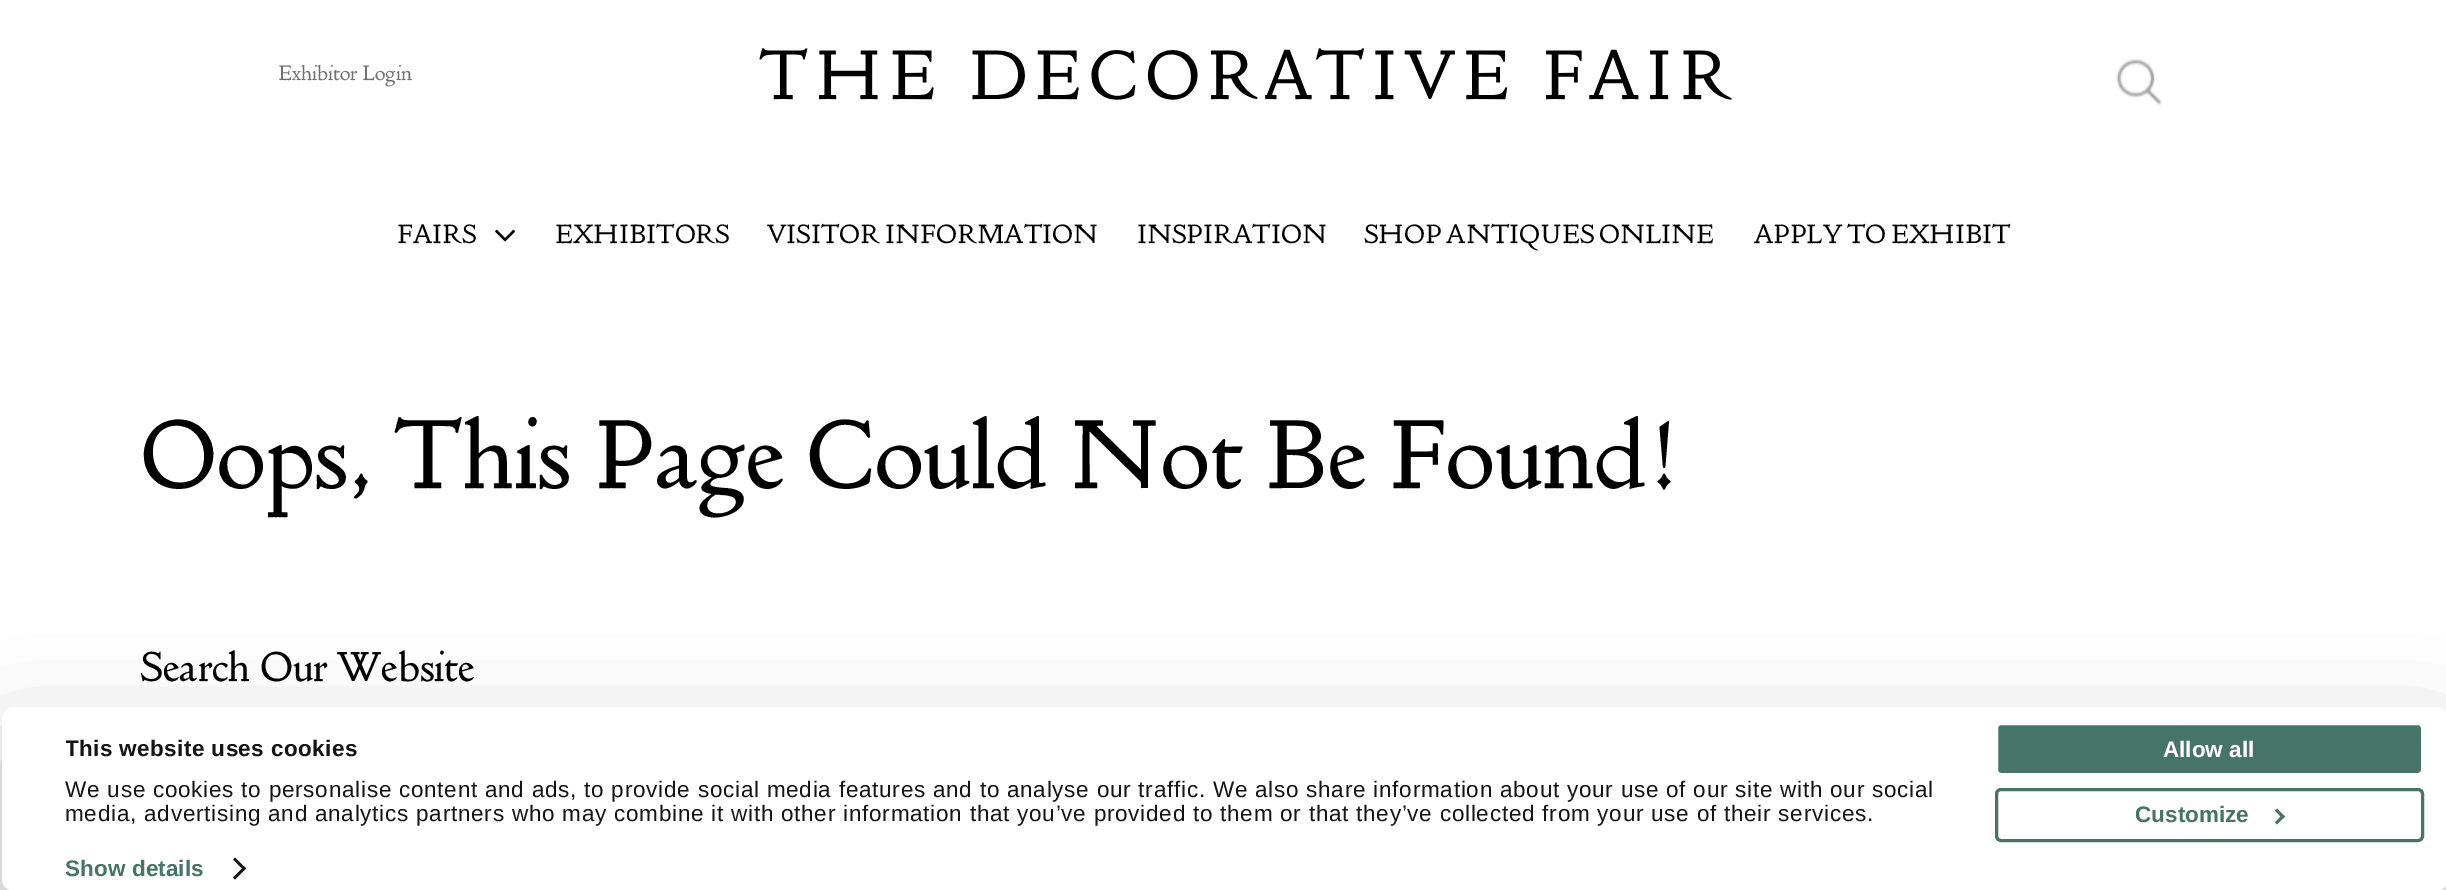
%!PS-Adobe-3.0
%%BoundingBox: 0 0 2446 890
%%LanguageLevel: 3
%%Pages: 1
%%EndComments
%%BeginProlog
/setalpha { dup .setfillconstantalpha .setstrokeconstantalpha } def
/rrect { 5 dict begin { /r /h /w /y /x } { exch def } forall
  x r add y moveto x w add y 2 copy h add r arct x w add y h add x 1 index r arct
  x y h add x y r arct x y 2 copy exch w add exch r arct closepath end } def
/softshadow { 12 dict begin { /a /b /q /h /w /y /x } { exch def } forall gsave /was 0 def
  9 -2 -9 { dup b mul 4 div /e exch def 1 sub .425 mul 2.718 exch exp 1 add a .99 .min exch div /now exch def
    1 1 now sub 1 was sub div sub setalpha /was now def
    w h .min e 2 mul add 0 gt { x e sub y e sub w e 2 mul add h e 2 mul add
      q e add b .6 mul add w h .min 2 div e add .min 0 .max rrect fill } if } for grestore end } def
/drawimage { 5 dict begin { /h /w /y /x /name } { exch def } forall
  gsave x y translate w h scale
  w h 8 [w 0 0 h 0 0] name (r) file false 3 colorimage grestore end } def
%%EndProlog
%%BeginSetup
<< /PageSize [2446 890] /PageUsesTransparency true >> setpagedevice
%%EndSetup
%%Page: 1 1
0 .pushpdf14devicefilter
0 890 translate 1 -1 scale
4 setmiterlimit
1 setgray
0 0 2446 890 rectfill
(images/1.raw) 759 48 973 52 drawimage
(images/2.raw) 2116 59 46 46 drawimage
(images/3.raw) 495 229 20 13 drawimage
gsave
newpath 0 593 moveto 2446 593 lineto 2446 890 lineto 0 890 lineto closepath 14 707 moveto 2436 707 lineto 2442.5 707 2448 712.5 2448 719 curveto 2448 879 lineto 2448 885.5 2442.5 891 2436 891 curveto 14 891 lineto 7.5 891 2 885.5 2 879 curveto 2 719 lineto 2 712.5 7.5 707 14 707 curveto closepath eoclip newpath
0 setgray
2 752 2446 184 12 52.5 0.3 softshadow
grestore
2 707 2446 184 12 rrect fill
0.078 setgray
newpath 235 857.5 moveto 246 868.5 lineto 244 870.5 lineto 233 859.5 lineto closepath fill
newpath 244 866.5 moveto 246 868.5 lineto 235 879.5 lineto 233 877.5 lineto closepath fill
0.275 0.459 0.404 setrgbcolor
1996.5 723.5 426 51 4.5 rrect gsave fill grestore
1 setgray
3 setlinewidth
stroke
0.275 0.459 0.404 setrgbcolor
1996.5 789.5 426 51 4.5 rrect stroke
newpath 2277 808.5 moveto 2285 816.5 lineto 2282.5 818.5 lineto 2275 810.5 lineto closepath fill
newpath 2282.5 814.5 moveto 2285 816.5 lineto 2277 824.5 lineto 2275 822.5 lineto closepath fill
/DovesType-Regular [22.5 0 0 -22.5 0 0] selectfont
0.439 setgray
278 80 moveto (Exhibitor Login) show
/DovesType-Regular [28.5 0 0 -28.5 0 0] selectfont
0 setgray
397 243 moveto (FAIRS) show
555 243 moveto (EXHIBITORS) show
767 243 moveto -1 0 32 (VISITOR INFORMATION) widthshow
1137 243 moveto (INSPIRATION) show
1364 243 moveto -1 0 32 (SHOP ANTIQUES ONLINE) widthshow
1754 243 moveto -1 0 32 (APPLY TO EXHIBIT) widthshow
/DovesType-Regular [105 0 0 -105 0 0] selectfont
140 488 moveto (Oops, This Page Could Not Be Found!) show
/DovesType-Regular [45 0 0 -45 0 0] selectfont
140 681 moveto (Search Our Website) show
gsave
66 731 1887 96 rectclip
/LiberationSans-Bold [22.5 0 0 -22.5 0 0] selectfont
0.078 setgray
65 756 moveto 0.4 0 (This website uses cookies) ashow
grestore
/LiberationSans-Regular [22.5 0 0 -22.5 0 0] selectfont
0.078 setgray
65 797 moveto 0.75 0 (We use cookies to personalise content and ads, to provide social media features and to analyse our traffic. We also share information about your use of our site with our social) ashow
65 821 moveto 0.75 0 (media, advertising and analytics partners who may combine it with other information that you’ve provided to them or that they’ve collected from your use of their services.) ashow
/LiberationSans-Bold [22.5 0 0 -22.5 0 0] selectfont
0.275 0.459 0.404 setrgbcolor
65 876 moveto 0.1 0 (Show details) ashow
1 setgray
2163 757 moveto (Allow all) show
0.275 0.459 0.404 setrgbcolor
2135 822 moveto (Customize) show
.poppdf14devicefilter showpage
%%EOF
